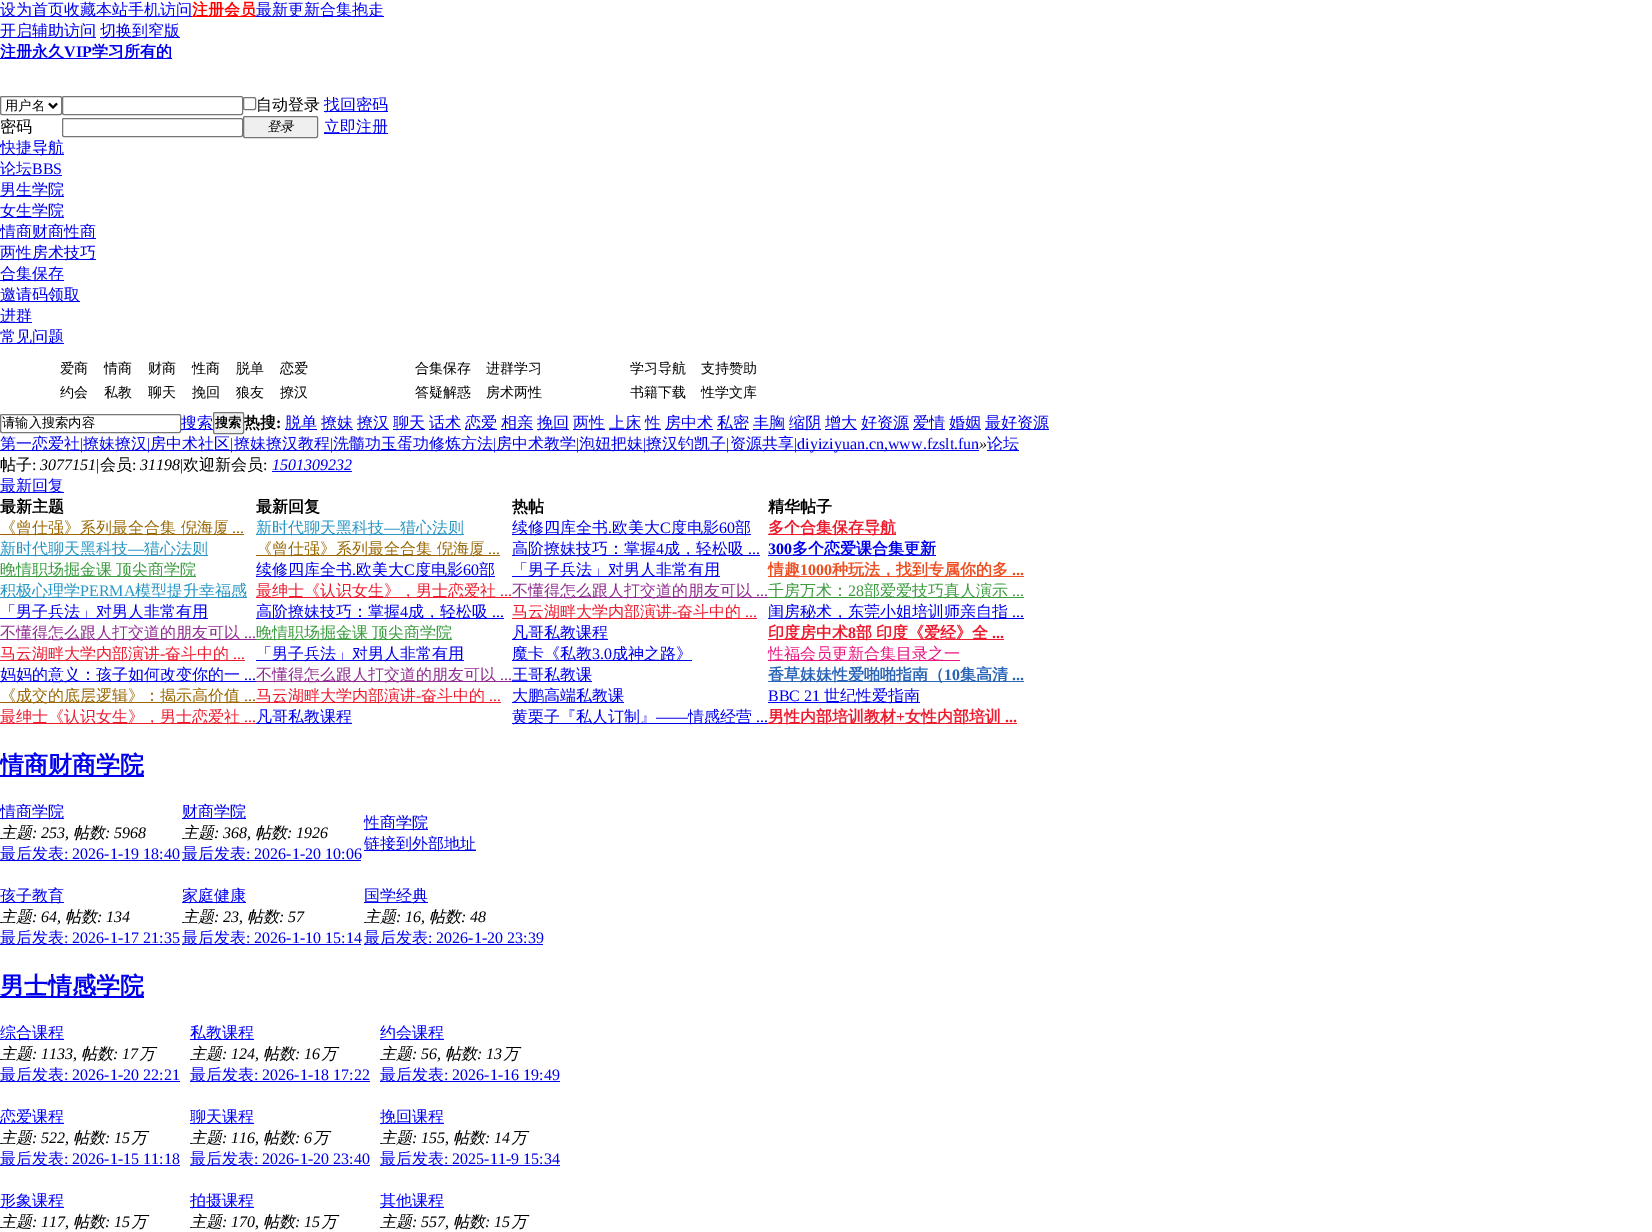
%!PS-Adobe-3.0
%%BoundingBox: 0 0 1652 1232
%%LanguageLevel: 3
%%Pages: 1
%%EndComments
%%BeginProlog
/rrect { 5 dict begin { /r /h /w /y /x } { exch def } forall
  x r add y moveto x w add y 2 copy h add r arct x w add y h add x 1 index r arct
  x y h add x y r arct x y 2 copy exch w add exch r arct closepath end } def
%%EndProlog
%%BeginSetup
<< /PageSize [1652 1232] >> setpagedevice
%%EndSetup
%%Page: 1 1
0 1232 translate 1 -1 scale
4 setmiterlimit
1 setgray
0 0 1652 1232 rectfill
0 0 0.933 setrgbcolor
0 16 128 1 rectfill
0 0 1 setrgbcolor
128 16 64 1 rectfill
1 0 0 setrgbcolor
192 16 64 1 rectfill
0 0 0.933 setrgbcolor
256 16 64 1 rectfill
0 0 1 setrgbcolor
320 16 64 1 rectfill
0 0 0.933 setrgbcolor
0 37 96 1 rectfill
100 37 80 1 rectfill
0 58 172 1 rectfill
0.463 setgray
0.5 96.5 61 18 1.5 rrect stroke
0 setgray
2 setlinewidth
newpath 49 103.5 moveto 53 107.5 lineto 57 103.5 lineto stroke
0.463 setgray
1 setlinewidth
62.5 96.5 180 18 1.5 rrect stroke
243.5 97.5 12 12 1.5 rrect stroke
0 0 0.933 setrgbcolor
324 111 64 1 rectfill
0.463 setgray
62.5 118.5 180 18 1.5 rrect stroke
0.937 setgray
243.5 116.5 74 21 1.5 rrect gsave fill grestore
0.463 setgray
stroke
0 0 0.933 setrgbcolor
324 133 64 1 rectfill
0 154 64 1 rectfill
0 175 62 1 rectfill
0 196 64 1 rectfill
0 217 64 1 rectfill
0 238 96 1 rectfill
0 259 96 1 rectfill
0 280 64 1 rectfill
0 301 80 1 rectfill
0 322 32 1 rectfill
0 343 64 1 rectfill
0.463 setgray
0.5 414.5 180 18 1.5 rrect stroke
0 0 0.933 setrgbcolor
181 429 32 1 rectfill
0.937 setgray
213.5 412.5 30 21 1.5 rrect gsave fill grestore
0.463 setgray
stroke
0 0 0.933 setrgbcolor
285 429 32 1 rectfill
321 429 32 1 rectfill
357 429 32 1 rectfill
393 429 32 1 rectfill
429 429 32 1 rectfill
465 429 32 1 rectfill
501 429 32 1 rectfill
537 429 32 1 rectfill
573 429 32 1 rectfill
609 429 32 1 rectfill
645 429 16 1 rectfill
665 429 48 1 rectfill
717 429 32 1 rectfill
753 429 32 1 rectfill
789 429 32 1 rectfill
825 429 32 1 rectfill
861 429 48 1 rectfill
913 429 32 1 rectfill
949 429 32 1 rectfill
985 429 64 1 rectfill
0 450 979 1 rectfill
987 450 32 1 rectfill
272 471 80 1 rectfill
0 492 64 1 rectfill
0.6 0.4 0 setrgbcolor
0 534 244 1 rectfill
0.157 0.592 0.773 setrgbcolor
0 555 208 1 rectfill
0.235 0.616 0.251 setrgbcolor
0 576 196 1 rectfill
0.157 0.592 0.773 setrgbcolor
0 597 247 1 rectfill
0 0 0.933 setrgbcolor
0 618 208 1 rectfill
0.561 0.165 0.565 setrgbcolor
0 639 256 1 rectfill
0.933 0.106 0.18 setrgbcolor
0 660 245 1 rectfill
0 0 0.933 setrgbcolor
0 681 256 1 rectfill
0.6 0.4 0 setrgbcolor
0 702 256 1 rectfill
0.933 0.106 0.18 setrgbcolor
0 723 256 1 rectfill
0.157 0.592 0.773 setrgbcolor
256 534 208 1 rectfill
0.6 0.4 0 setrgbcolor
256 555 244 1 rectfill
0 0 0.933 setrgbcolor
256 576 239 1 rectfill
0.933 0.106 0.18 setrgbcolor
256 597 256 1 rectfill
0 0 0.933 setrgbcolor
256 618 248 1 rectfill
0.235 0.616 0.251 setrgbcolor
256 639 196 1 rectfill
0 0 0.933 setrgbcolor
256 660 208 1 rectfill
0.561 0.165 0.565 setrgbcolor
256 681 256 1 rectfill
0.933 0.106 0.18 setrgbcolor
256 702 245 1 rectfill
0 0 0.933 setrgbcolor
256 723 96 1 rectfill
512 534 239 1 rectfill
512 555 248 1 rectfill
512 576 208 1 rectfill
0.561 0.165 0.565 setrgbcolor
512 597 256 1 rectfill
0.933 0.106 0.18 setrgbcolor
512 618 245 1 rectfill
0 0 0.933 setrgbcolor
512 639 96 1 rectfill
512 660 180 1 rectfill
512 681 80 1 rectfill
512 702 112 1 rectfill
512 723 256 1 rectfill
0.933 0.106 0.18 setrgbcolor
768 534 128 1 rectfill
0 0 0.933 setrgbcolor
768 555 168 1 rectfill
0.933 0.314 0.137 setrgbcolor
768 576 256 1 rectfill
0.235 0.616 0.251 setrgbcolor
768 597 256 1 rectfill
0 0 0.933 setrgbcolor
768 618 256 1 rectfill
0.933 0.106 0.18 setrgbcolor
768 639 236 1 rectfill
0.925 0.071 0.51 setrgbcolor
768 660 192 1 rectfill
0.169 0.396 0.718 setrgbcolor
768 681 256 1 rectfill
0 0 0.933 setrgbcolor
768 702 152 1 rectfill
0.933 0.106 0.18 setrgbcolor
768 723 249 1 rectfill
0 0 0.933 setrgbcolor
0 775 144 2 rectfill
0 818 64 1 rectfill
0 860 180 1 rectfill
182 818 64 1 rectfill
182 860 179 1 rectfill
364 829 64 1 rectfill
364 850 112 1 rectfill
0 902 64 1 rectfill
0 944 180 1 rectfill
182 902 64 1 rectfill
182 944 179 1 rectfill
364 902 64 1 rectfill
364 944 179 1 rectfill
0 996 144 2 rectfill
0 0 1 setrgbcolor
0 1039 64 1 rectfill
0 0 0.933 setrgbcolor
0 1081 180 1 rectfill
0 0 1 setrgbcolor
190 1039 64 1 rectfill
0 0 0.933 setrgbcolor
190 1081 180 1 rectfill
0 0 1 setrgbcolor
380 1039 64 1 rectfill
0 0 0.933 setrgbcolor
380 1081 180 1 rectfill
0 0 1 setrgbcolor
0 1123 64 1 rectfill
0 0 0.933 setrgbcolor
0 1165 180 1 rectfill
0 0 1 setrgbcolor
190 1123 64 1 rectfill
0 0 0.933 setrgbcolor
190 1165 180 1 rectfill
0 0 1 setrgbcolor
380 1123 64 1 rectfill
0 0 0.933 setrgbcolor
380 1165 180 1 rectfill
0 0 1 setrgbcolor
0 1207 64 1 rectfill
190 1207 64 1 rectfill
380 1207 64 1 rectfill
/WenQuanYiZenHei-Medium [16 0 0 -16 0 0] selectfont
0 0 0.933 setrgbcolor
0 15 moveto (设为首页收藏本站) show
0 0 1 setrgbcolor
128 15 moveto (手机访问) show
/WenQuanYiZenHei-Bold [16 0 0 -16 0 0] selectfont
1 0 0 setrgbcolor
192 15 moveto (注册会员) show
/WenQuanYiZenHei-Medium [16 0 0 -16 0 0] selectfont
0 0 0.933 setrgbcolor
256 15 moveto (最新更新) show
0 0 1 setrgbcolor
320 15 moveto (合集抱走) show
0 0 0.933 setrgbcolor
0 36 moveto (开启辅助访问) show
100 36 moveto (切换到窄版) show
/WenQuanYiZenHei-Bold [16 0 0 -16 0 0] selectfont
0 57 moveto (注册永久) show
/LiberationSerif-Bold [16 0 0 -16 0 0] selectfont
64 57 moveto (VIP) show
/WenQuanYiZenHei-Bold [16 0 0 -16 0 0] selectfont
92 57 moveto (学习所有的) show
/WenQuanYiZenHei-Medium [13.25 0 0 -13.25 0 0] selectfont
0 setgray
5 110 moveto (用户名) show
/WenQuanYiZenHei-Medium [16 0 0 -16 0 0] selectfont
256 110 moveto (自动登录) show
0 0 0.933 setrgbcolor
324 110 moveto (找回密码) show
0 setgray
0 132 moveto (密码) show
/WenQuanYiZenHei-MediumItalic [13.25 0 0 -13.25 0 0] selectfont
267 131 moveto (登录) show
/WenQuanYiZenHei-Medium [16 0 0 -16 0 0] selectfont
0 0 0.933 setrgbcolor
324 132 moveto (立即注册) show
0 153 moveto (快捷导航) show
0 174 moveto (论坛) show
/LiberationSerif-Regular [16 0 0 -16 0 0] selectfont
32 174 moveto (BBS) show
/WenQuanYiZenHei-Medium [16 0 0 -16 0 0] selectfont
0 195 moveto (男生学院) show
0 216 moveto (女生学院) show
0 237 moveto (情商财商性商) show
0 258 moveto (两性房术技巧) show
0 279 moveto (合集保存) show
0 300 moveto (邀请码领取) show
0 321 moveto (进群) show
0 342 moveto (常见问题) show
/WenQuanYiZenHei-Medium [14 0 0 -14 0 0] selectfont
0 setgray
60 373 moveto (爱商) show
104 373 moveto (情商) show
148 373 moveto (财商) show
192 373 moveto (性商) show
236 373 moveto (脱单) show
280 373 moveto (恋爱) show
60 397 moveto (约会) show
104 397 moveto (私教) show
148 397 moveto (聊天) show
192 397 moveto (挽回) show
236 397 moveto (狼友) show
280 397 moveto (撩汉) show
415 373 moveto (合集保存) show
486 373 moveto (进群学习) show
415 397 moveto (答疑解惑) show
486 397 moveto (房术两性) show
630 373 moveto (学习导航) show
701 373 moveto (支持赞助) show
630 397 moveto (书籍下载) show
701 397 moveto (性学文库) show
/WenQuanYiZenHei-Medium [13.25 0 0 -13.25 0 0] selectfont
2 427 moveto (请输入搜索内容) show
/WenQuanYiZenHei-Medium [16 0 0 -16 0 0] selectfont
0 0 0.933 setrgbcolor
181 428 moveto (搜索) show
/WenQuanYiZenHei-Bold [13.25 0 0 -13.25 0 0] selectfont
0 setgray
215 427 moveto (搜索) show
/WenQuanYiZenHei-Bold [16 0 0 -16 0 0] selectfont
244 428 moveto (热搜) show
/LiberationSerif-Bold [16 0 0 -16 0 0] selectfont
276 428 moveto (:) show
/WenQuanYiZenHei-Medium [16 0 0 -16 0 0] selectfont
0 0 0.933 setrgbcolor
285 428 moveto (脱单) show
321 428 moveto (撩妹) show
357 428 moveto (撩汉) show
393 428 moveto (聊天) show
429 428 moveto (话术) show
465 428 moveto (恋爱) show
501 428 moveto (相亲) show
537 428 moveto (挽回) show
573 428 moveto (两性) show
609 428 moveto (上床) show
645 428 moveto (性) show
665 428 moveto (房中术) show
717 428 moveto (私密) show
753 428 moveto (丰胸) show
789 428 moveto (缩阴) show
825 428 moveto (增大) show
861 428 moveto (好资源) show
913 428 moveto (爱情) show
949 428 moveto (婚姻) show
985 428 moveto (最好资源) show
0 449 moveto (第一恋爱社) show
/LiberationSerif-Regular [16 0 0 -16 0 0] selectfont
80 449 moveto (|) show
/WenQuanYiZenHei-Medium [16 0 0 -16 0 0] selectfont
83 449 moveto (撩妹撩汉) show
/LiberationSerif-Regular [16 0 0 -16 0 0] selectfont
147 449 moveto (|) show
/WenQuanYiZenHei-Medium [16 0 0 -16 0 0] selectfont
150 449 moveto (房中术社区) show
/LiberationSerif-Regular [16 0 0 -16 0 0] selectfont
230 449 moveto (|) show
/WenQuanYiZenHei-Medium [16 0 0 -16 0 0] selectfont
234 449 moveto (撩妹撩汉教程) show
/LiberationSerif-Regular [16 0 0 -16 0 0] selectfont
330 449 moveto (|) show
/WenQuanYiZenHei-Medium [16 0 0 -16 0 0] selectfont
333 449 moveto (洗髓功玉蛋功修炼方法) show
/LiberationSerif-Regular [16 0 0 -16 0 0] selectfont
493 449 moveto (|) show
/WenQuanYiZenHei-Medium [16 0 0 -16 0 0] selectfont
496 449 moveto (房中术教学) show
/LiberationSerif-Regular [16 0 0 -16 0 0] selectfont
576 449 moveto (|) show
/WenQuanYiZenHei-Medium [16 0 0 -16 0 0] selectfont
579 449 moveto (泡妞把妹) show
/LiberationSerif-Regular [16 0 0 -16 0 0] selectfont
643 449 moveto (|) show
/WenQuanYiZenHei-Medium [16 0 0 -16 0 0] selectfont
646 449 moveto (撩汉钓凯子) show
/LiberationSerif-Regular [16 0 0 -16 0 0] selectfont
726 449 moveto (|) show
/WenQuanYiZenHei-Medium [16 0 0 -16 0 0] selectfont
730 449 moveto (资源共享) show
/LiberationSerif-Regular [16 0 0 -16 0 0] selectfont
794 449 moveto (|diyiziyuan.cn,www.fzslt.fun) show
/LiberationSerif-Italic [16 0 0 -16 0 0] selectfont
0 setgray
979 449 moveto (») show
/WenQuanYiZenHei-Medium [16 0 0 -16 0 0] selectfont
0 0 0.933 setrgbcolor
987 449 moveto (论坛) show
0 setgray
0 470 moveto (帖子) show
/LiberationSerif-Regular [16 0 0 -16 0 0] selectfont
32 470 moveto (:) show
/LiberationSerif-Italic [16 0 0 -16 0 0] selectfont
40 470 moveto (3077151) show
/LiberationSerif-Regular [16 0 0 -16 0 0] selectfont
96 470 moveto (|) show
/WenQuanYiZenHei-Medium [16 0 0 -16 0 0] selectfont
100 470 moveto (会员) show
/LiberationSerif-Regular [16 0 0 -16 0 0] selectfont
132 470 moveto (:) show
/LiberationSerif-Italic [16 0 0 -16 0 0] selectfont
140 470 moveto (31198) show
/LiberationSerif-Regular [16 0 0 -16 0 0] selectfont
180 470 moveto (|) show
/WenQuanYiZenHei-Medium [16 0 0 -16 0 0] selectfont
183 470 moveto (欢迎新会员) show
/LiberationSerif-Regular [16 0 0 -16 0 0] selectfont
263 470 moveto (:) show
/LiberationSerif-Italic [16 0 0 -16 0 0] selectfont
0 0 0.933 setrgbcolor
272 470 moveto (1501309232) show
/WenQuanYiZenHei-Medium [16 0 0 -16 0 0] selectfont
0 491 moveto (最新回复) show
/WenQuanYiZenHei-Bold [16 0 0 -16 0 0] selectfont
0 setgray
0 512 moveto (最新主题) show
/WenQuanYiZenHei-Medium [16 0 0 -16 0 0] selectfont
0.6 0.4 0 setrgbcolor
0 533 moveto (《曾仕强》系列最全合集 倪海厦) show
/LiberationSerif-Regular [16 0 0 -16 0 0] selectfont
232 533 moveto (...) show
/WenQuanYiZenHei-Medium [16 0 0 -16 0 0] selectfont
0.157 0.592 0.773 setrgbcolor
0 554 moveto (新时代聊天黑科技) show
/LiberationSerif-Regular [16 0 0 -16 0 0] selectfont
128 554 moveto (—) show
/WenQuanYiZenHei-Medium [16 0 0 -16 0 0] selectfont
144 554 moveto (猎心法则) show
0.235 0.616 0.251 setrgbcolor
0 575 moveto (晚情职场掘金课) show
116 575 moveto (顶尖商学院) show
0.157 0.592 0.773 setrgbcolor
0 596 moveto (积极心理学) show
/LiberationSerif-Regular [16 0 0 -16 0 0] selectfont
80 596 moveto (PERMA) show
/WenQuanYiZenHei-Medium [16 0 0 -16 0 0] selectfont
135 596 moveto (模型提升幸福感) show
0 0 0.933 setrgbcolor
0 617 moveto (「男子兵法」对男人非常有用) show
0.561 0.165 0.565 setrgbcolor
0 638 moveto (不懂得怎么跟人打交道的朋友可以) show
/LiberationSerif-Regular [16 0 0 -16 0 0] selectfont
244 638 moveto (...) show
/WenQuanYiZenHei-Medium [16 0 0 -16 0 0] selectfont
0.933 0.106 0.18 setrgbcolor
0 659 moveto (马云湖畔大学内部演讲) show
/LiberationSerif-Regular [16 0 0 -16 0 0] selectfont
160 659 moveto (-) show
/WenQuanYiZenHei-Medium [16 0 0 -16 0 0] selectfont
165 659 moveto (奋斗中的) show
/LiberationSerif-Regular [16 0 0 -16 0 0] selectfont
233 659 moveto (...) show
/WenQuanYiZenHei-Medium [16 0 0 -16 0 0] selectfont
0 0 0.933 setrgbcolor
0 680 moveto (妈妈的意义：孩子如何改变你的一) show
/LiberationSerif-Regular [16 0 0 -16 0 0] selectfont
244 680 moveto (...) show
/WenQuanYiZenHei-Medium [16 0 0 -16 0 0] selectfont
0.6 0.4 0 setrgbcolor
0 701 moveto (《成交的底层逻辑》：揭示高价值) show
/LiberationSerif-Regular [16 0 0 -16 0 0] selectfont
244 701 moveto (...) show
/WenQuanYiZenHei-Medium [16 0 0 -16 0 0] selectfont
0.933 0.106 0.18 setrgbcolor
0 722 moveto (最绅士《认识女生》，男士恋爱社) show
/LiberationSerif-Regular [16 0 0 -16 0 0] selectfont
244 722 moveto (...) show
/WenQuanYiZenHei-Bold [16 0 0 -16 0 0] selectfont
0 setgray
256 512 moveto (最新回复) show
/WenQuanYiZenHei-Medium [16 0 0 -16 0 0] selectfont
0.157 0.592 0.773 setrgbcolor
256 533 moveto (新时代聊天黑科技) show
/LiberationSerif-Regular [16 0 0 -16 0 0] selectfont
384 533 moveto (—) show
/WenQuanYiZenHei-Medium [16 0 0 -16 0 0] selectfont
400 533 moveto (猎心法则) show
0.6 0.4 0 setrgbcolor
256 554 moveto (《曾仕强》系列最全合集 倪海厦) show
/LiberationSerif-Regular [16 0 0 -16 0 0] selectfont
488 554 moveto (...) show
/WenQuanYiZenHei-Medium [16 0 0 -16 0 0] selectfont
0 0 0.933 setrgbcolor
256 575 moveto (续修四库全书) show
/LiberationSerif-Regular [16 0 0 -16 0 0] selectfont
352 575 moveto (.) show
/WenQuanYiZenHei-Medium [16 0 0 -16 0 0] selectfont
356 575 moveto (欧美大) show
/LiberationSerif-Regular [16 0 0 -16 0 0] selectfont
404 575 moveto (C) show
/WenQuanYiZenHei-Medium [16 0 0 -16 0 0] selectfont
415 575 moveto (度电影) show
/LiberationSerif-Regular [16 0 0 -16 0 0] selectfont
463 575 moveto (60) show
/WenQuanYiZenHei-Medium [16 0 0 -16 0 0] selectfont
479 575 moveto (部) show
0.933 0.106 0.18 setrgbcolor
256 596 moveto (最绅士《认识女生》，男士恋爱社) show
/LiberationSerif-Regular [16 0 0 -16 0 0] selectfont
500 596 moveto (...) show
/WenQuanYiZenHei-Medium [16 0 0 -16 0 0] selectfont
0 0 0.933 setrgbcolor
256 617 moveto (高阶撩妹技巧：掌握) show
/LiberationSerif-Regular [16 0 0 -16 0 0] selectfont
400 617 moveto (4) show
/WenQuanYiZenHei-Medium [16 0 0 -16 0 0] selectfont
408 617 moveto (成，轻松吸) show
/LiberationSerif-Regular [16 0 0 -16 0 0] selectfont
492 617 moveto (...) show
/WenQuanYiZenHei-Medium [16 0 0 -16 0 0] selectfont
0.235 0.616 0.251 setrgbcolor
256 638 moveto (晚情职场掘金课) show
372 638 moveto (顶尖商学院) show
0 0 0.933 setrgbcolor
256 659 moveto (「男子兵法」对男人非常有用) show
0.561 0.165 0.565 setrgbcolor
256 680 moveto (不懂得怎么跟人打交道的朋友可以) show
/LiberationSerif-Regular [16 0 0 -16 0 0] selectfont
500 680 moveto (...) show
/WenQuanYiZenHei-Medium [16 0 0 -16 0 0] selectfont
0.933 0.106 0.18 setrgbcolor
256 701 moveto (马云湖畔大学内部演讲) show
/LiberationSerif-Regular [16 0 0 -16 0 0] selectfont
416 701 moveto (-) show
/WenQuanYiZenHei-Medium [16 0 0 -16 0 0] selectfont
421 701 moveto (奋斗中的) show
/LiberationSerif-Regular [16 0 0 -16 0 0] selectfont
489 701 moveto (...) show
/WenQuanYiZenHei-Medium [16 0 0 -16 0 0] selectfont
0 0 0.933 setrgbcolor
256 722 moveto (凡哥私教课程) show
/WenQuanYiZenHei-Bold [16 0 0 -16 0 0] selectfont
0 setgray
512 512 moveto (热帖) show
/WenQuanYiZenHei-Medium [16 0 0 -16 0 0] selectfont
0 0 0.933 setrgbcolor
512 533 moveto (续修四库全书) show
/LiberationSerif-Regular [16 0 0 -16 0 0] selectfont
608 533 moveto (.) show
/WenQuanYiZenHei-Medium [16 0 0 -16 0 0] selectfont
612 533 moveto (欧美大) show
/LiberationSerif-Regular [16 0 0 -16 0 0] selectfont
660 533 moveto (C) show
/WenQuanYiZenHei-Medium [16 0 0 -16 0 0] selectfont
671 533 moveto (度电影) show
/LiberationSerif-Regular [16 0 0 -16 0 0] selectfont
719 533 moveto (60) show
/WenQuanYiZenHei-Medium [16 0 0 -16 0 0] selectfont
735 533 moveto (部) show
512 554 moveto (高阶撩妹技巧：掌握) show
/LiberationSerif-Regular [16 0 0 -16 0 0] selectfont
656 554 moveto (4) show
/WenQuanYiZenHei-Medium [16 0 0 -16 0 0] selectfont
664 554 moveto (成，轻松吸) show
/LiberationSerif-Regular [16 0 0 -16 0 0] selectfont
748 554 moveto (...) show
/WenQuanYiZenHei-Medium [16 0 0 -16 0 0] selectfont
512 575 moveto (「男子兵法」对男人非常有用) show
0.561 0.165 0.565 setrgbcolor
512 596 moveto (不懂得怎么跟人打交道的朋友可以) show
/LiberationSerif-Regular [16 0 0 -16 0 0] selectfont
756 596 moveto (...) show
/WenQuanYiZenHei-Medium [16 0 0 -16 0 0] selectfont
0.933 0.106 0.18 setrgbcolor
512 617 moveto (马云湖畔大学内部演讲) show
/LiberationSerif-Regular [16 0 0 -16 0 0] selectfont
672 617 moveto (-) show
/WenQuanYiZenHei-Medium [16 0 0 -16 0 0] selectfont
677 617 moveto (奋斗中的) show
/LiberationSerif-Regular [16 0 0 -16 0 0] selectfont
745 617 moveto (...) show
/WenQuanYiZenHei-Medium [16 0 0 -16 0 0] selectfont
0 0 0.933 setrgbcolor
512 638 moveto (凡哥私教课程) show
512 659 moveto (魔卡《私教) show
/LiberationSerif-Regular [16 0 0 -16 0 0] selectfont
592 659 moveto (3.0) show
/WenQuanYiZenHei-Medium [16 0 0 -16 0 0] selectfont
612 659 moveto (成神之路》) show
512 680 moveto (王哥私教课) show
512 701 moveto (大鹏高端私教课) show
512 722 moveto (黄栗子『私人订制』) show
/LiberationSerif-Regular [16 0 0 -16 0 0] selectfont
656 722 moveto (——) show
/WenQuanYiZenHei-Medium [16 0 0 -16 0 0] selectfont
688 722 moveto (情感经营) show
/LiberationSerif-Regular [16 0 0 -16 0 0] selectfont
756 722 moveto (...) show
/WenQuanYiZenHei-Bold [16 0 0 -16 0 0] selectfont
0 setgray
768 512 moveto (精华帖子) show
0.933 0.106 0.18 setrgbcolor
768 533 moveto (多个合集保存导航) show
/LiberationSerif-Bold [16 0 0 -16 0 0] selectfont
0 0 0.933 setrgbcolor
768 554 moveto (300) show
/WenQuanYiZenHei-Bold [16 0 0 -16 0 0] selectfont
792 554 moveto (多个恋爱课合集更新) show
0.933 0.314 0.137 setrgbcolor
768 575 moveto (情趣) show
/LiberationSerif-Bold [16 0 0 -16 0 0] selectfont
800 575 moveto (1000) show
/WenQuanYiZenHei-Bold [16 0 0 -16 0 0] selectfont
832 575 moveto (种玩法，找到专属你的多) show
/LiberationSerif-Bold [16 0 0 -16 0 0] selectfont
1012 575 moveto (...) show
/WenQuanYiZenHei-Medium [16 0 0 -16 0 0] selectfont
0.235 0.616 0.251 setrgbcolor
768 596 moveto (千房万术：) show
/LiberationSerif-Regular [16 0 0 -16 0 0] selectfont
848 596 moveto (28) show
/WenQuanYiZenHei-Medium [16 0 0 -16 0 0] selectfont
864 596 moveto (部爱爱技巧真人演示) show
/LiberationSerif-Regular [16 0 0 -16 0 0] selectfont
1012 596 moveto (...) show
/WenQuanYiZenHei-Medium [16 0 0 -16 0 0] selectfont
0 0 0.933 setrgbcolor
768 617 moveto (闺房秘术，东莞小姐培训师亲自指) show
/LiberationSerif-Regular [16 0 0 -16 0 0] selectfont
1012 617 moveto (...) show
/WenQuanYiZenHei-Bold [16 0 0 -16 0 0] selectfont
0.933 0.106 0.18 setrgbcolor
768 638 moveto (印度房中术) show
/LiberationSerif-Bold [16 0 0 -16 0 0] selectfont
848 638 moveto (8) show
/WenQuanYiZenHei-Bold [16 0 0 -16 0 0] selectfont
856 638 moveto (部) show
876 638 moveto (印度《爱经》全) show
/LiberationSerif-Bold [16 0 0 -16 0 0] selectfont
992 638 moveto (...) show
/WenQuanYiZenHei-Medium [16 0 0 -16 0 0] selectfont
0.925 0.071 0.51 setrgbcolor
768 659 moveto (性福会员更新合集目录之一) show
/WenQuanYiZenHei-Bold [16 0 0 -16 0 0] selectfont
0.169 0.396 0.718 setrgbcolor
768 680 moveto (香草妹妹性爱啪啪指南（) show
/LiberationSerif-Bold [16 0 0 -16 0 0] selectfont
944 680 moveto (10) show
/WenQuanYiZenHei-Bold [16 0 0 -16 0 0] selectfont
960 680 moveto (集高清) show
/LiberationSerif-Bold [16 0 0 -16 0 0] selectfont
1012 680 moveto (...) show
/LiberationSerif-Regular [16 0 0 -16 0 0] selectfont
0 0 0.933 setrgbcolor
768 701 moveto (BBC 21) show
/WenQuanYiZenHei-Medium [16 0 0 -16 0 0] selectfont
824 701 moveto (世纪性爱指南) show
/WenQuanYiZenHei-Bold [16 0 0 -16 0 0] selectfont
0.933 0.106 0.18 setrgbcolor
768 722 moveto (男性内部培训教材) show
/LiberationSerif-Bold [16 0 0 -16 0 0] selectfont
896 722 moveto (+) show
/WenQuanYiZenHei-Bold [16 0 0 -16 0 0] selectfont
905 722 moveto (女性内部培训) show
/LiberationSerif-Bold [16 0 0 -16 0 0] selectfont
1005 722 moveto (...) show
/WenQuanYiZenHei-Bold [24 0 0 -24 0 0] selectfont
0 0 0.933 setrgbcolor
0 773 moveto (情商财商学院) show
/WenQuanYiZenHei-Medium [16 0 0 -16 0 0] selectfont
0 817 moveto (情商学院) show
/WenQuanYiZenHei-MediumItalic [16 0 0 -16 0 0] selectfont
0 setgray
0 838 moveto (主题) show
/LiberationSerif-Italic [16 0 0 -16 0 0] selectfont
32 838 moveto (: 253) show
/LiberationSerif-Regular [16 0 0 -16 0 0] selectfont
65 838 moveto (,) show
/WenQuanYiZenHei-MediumItalic [16 0 0 -16 0 0] selectfont
73 838 moveto (帖数) show
/LiberationSerif-Italic [16 0 0 -16 0 0] selectfont
105 838 moveto (: 5968) show
/WenQuanYiZenHei-Medium [16 0 0 -16 0 0] selectfont
0 0 0.933 setrgbcolor
0 859 moveto (最后发表) show
/LiberationSerif-Regular [16 0 0 -16 0 0] selectfont
64 859 moveto (: 2026-1-19 18:40) show
/WenQuanYiZenHei-Medium [16 0 0 -16 0 0] selectfont
182 817 moveto (财商学院) show
/WenQuanYiZenHei-MediumItalic [16 0 0 -16 0 0] selectfont
0 setgray
182 838 moveto (主题) show
/LiberationSerif-Italic [16 0 0 -16 0 0] selectfont
214 838 moveto (: 368) show
/LiberationSerif-Regular [16 0 0 -16 0 0] selectfont
247 838 moveto (,) show
/WenQuanYiZenHei-MediumItalic [16 0 0 -16 0 0] selectfont
255 838 moveto (帖数) show
/LiberationSerif-Italic [16 0 0 -16 0 0] selectfont
287 838 moveto (: 1926) show
/WenQuanYiZenHei-Medium [16 0 0 -16 0 0] selectfont
0 0 0.933 setrgbcolor
182 859 moveto (最后发表) show
/LiberationSerif-Regular [16 0 0 -16 0 0] selectfont
246 859 moveto (: 2026-1-20 10:06) show
/WenQuanYiZenHei-Medium [16 0 0 -16 0 0] selectfont
364 828 moveto (性商学院) show
364 849 moveto (链接到外部地址) show
0 901 moveto (孩子教育) show
/WenQuanYiZenHei-MediumItalic [16 0 0 -16 0 0] selectfont
0 setgray
0 922 moveto (主题) show
/LiberationSerif-Italic [16 0 0 -16 0 0] selectfont
32 922 moveto (: 64) show
/LiberationSerif-Regular [16 0 0 -16 0 0] selectfont
57 922 moveto (,) show
/WenQuanYiZenHei-MediumItalic [16 0 0 -16 0 0] selectfont
65 922 moveto (帖数) show
/LiberationSerif-Italic [16 0 0 -16 0 0] selectfont
97 922 moveto (: 134) show
/WenQuanYiZenHei-Medium [16 0 0 -16 0 0] selectfont
0 0 0.933 setrgbcolor
0 943 moveto (最后发表) show
/LiberationSerif-Regular [16 0 0 -16 0 0] selectfont
64 943 moveto (: 2026-1-17 21:35) show
/WenQuanYiZenHei-Medium [16 0 0 -16 0 0] selectfont
182 901 moveto (家庭健康) show
/WenQuanYiZenHei-MediumItalic [16 0 0 -16 0 0] selectfont
0 setgray
182 922 moveto (主题) show
/LiberationSerif-Italic [16 0 0 -16 0 0] selectfont
214 922 moveto (: 23) show
/LiberationSerif-Regular [16 0 0 -16 0 0] selectfont
239 922 moveto (,) show
/WenQuanYiZenHei-MediumItalic [16 0 0 -16 0 0] selectfont
247 922 moveto (帖数) show
/LiberationSerif-Italic [16 0 0 -16 0 0] selectfont
279 922 moveto (: 57) show
/WenQuanYiZenHei-Medium [16 0 0 -16 0 0] selectfont
0 0 0.933 setrgbcolor
182 943 moveto (最后发表) show
/LiberationSerif-Regular [16 0 0 -16 0 0] selectfont
246 943 moveto (: 2026-1-10 15:14) show
/WenQuanYiZenHei-Medium [16 0 0 -16 0 0] selectfont
364 901 moveto (国学经典) show
/WenQuanYiZenHei-MediumItalic [16 0 0 -16 0 0] selectfont
0 setgray
364 922 moveto (主题) show
/LiberationSerif-Italic [16 0 0 -16 0 0] selectfont
396 922 moveto (: 16) show
/LiberationSerif-Regular [16 0 0 -16 0 0] selectfont
421 922 moveto (,) show
/WenQuanYiZenHei-MediumItalic [16 0 0 -16 0 0] selectfont
429 922 moveto (帖数) show
/LiberationSerif-Italic [16 0 0 -16 0 0] selectfont
461 922 moveto (: 48) show
/WenQuanYiZenHei-Medium [16 0 0 -16 0 0] selectfont
0 0 0.933 setrgbcolor
364 943 moveto (最后发表) show
/LiberationSerif-Regular [16 0 0 -16 0 0] selectfont
428 943 moveto (: 2026-1-20 23:39) show
/WenQuanYiZenHei-Bold [24 0 0 -24 0 0] selectfont
0 994 moveto (男士情感学院) show
/WenQuanYiZenHei-Medium [16 0 0 -16 0 0] selectfont
0 0 1 setrgbcolor
0 1038 moveto (综合课程) show
/WenQuanYiZenHei-MediumItalic [16 0 0 -16 0 0] selectfont
0 setgray
0 1059 moveto (主题) show
/LiberationSerif-Italic [16 0 0 -16 0 0] selectfont
32 1059 moveto (: 1133) show
/LiberationSerif-Regular [16 0 0 -16 0 0] selectfont
73 1059 moveto (,) show
/WenQuanYiZenHei-MediumItalic [16 0 0 -16 0 0] selectfont
81 1059 moveto (帖数) show
/LiberationSerif-Italic [16 0 0 -16 0 0] selectfont
113 1059 moveto (: 17) show
/WenQuanYiZenHei-MediumItalic [16 0 0 -16 0 0] selectfont
139 1059 moveto (万) show
/WenQuanYiZenHei-Medium [16 0 0 -16 0 0] selectfont
0 0 0.933 setrgbcolor
0 1080 moveto (最后发表) show
/LiberationSerif-Regular [16 0 0 -16 0 0] selectfont
64 1080 moveto (: 2026-1-20 22:21) show
/WenQuanYiZenHei-Medium [16 0 0 -16 0 0] selectfont
0 0 1 setrgbcolor
190 1038 moveto (私教课程) show
/WenQuanYiZenHei-MediumItalic [16 0 0 -16 0 0] selectfont
0 setgray
190 1059 moveto (主题) show
/LiberationSerif-Italic [16 0 0 -16 0 0] selectfont
222 1059 moveto (: 124) show
/LiberationSerif-Regular [16 0 0 -16 0 0] selectfont
255 1059 moveto (,) show
/WenQuanYiZenHei-MediumItalic [16 0 0 -16 0 0] selectfont
263 1059 moveto (帖数) show
/LiberationSerif-Italic [16 0 0 -16 0 0] selectfont
295 1059 moveto (: 16) show
/WenQuanYiZenHei-MediumItalic [16 0 0 -16 0 0] selectfont
321 1059 moveto (万) show
/WenQuanYiZenHei-Medium [16 0 0 -16 0 0] selectfont
0 0 0.933 setrgbcolor
190 1080 moveto (最后发表) show
/LiberationSerif-Regular [16 0 0 -16 0 0] selectfont
254 1080 moveto (: 2026-1-18 17:22) show
/WenQuanYiZenHei-Medium [16 0 0 -16 0 0] selectfont
0 0 1 setrgbcolor
380 1038 moveto (约会课程) show
/WenQuanYiZenHei-MediumItalic [16 0 0 -16 0 0] selectfont
0 setgray
380 1059 moveto (主题) show
/LiberationSerif-Italic [16 0 0 -16 0 0] selectfont
412 1059 moveto (: 56) show
/LiberationSerif-Regular [16 0 0 -16 0 0] selectfont
437 1059 moveto (,) show
/WenQuanYiZenHei-MediumItalic [16 0 0 -16 0 0] selectfont
445 1059 moveto (帖数) show
/LiberationSerif-Italic [16 0 0 -16 0 0] selectfont
477 1059 moveto (: 13) show
/WenQuanYiZenHei-MediumItalic [16 0 0 -16 0 0] selectfont
503 1059 moveto (万) show
/WenQuanYiZenHei-Medium [16 0 0 -16 0 0] selectfont
0 0 0.933 setrgbcolor
380 1080 moveto (最后发表) show
/LiberationSerif-Regular [16 0 0 -16 0 0] selectfont
444 1080 moveto (: 2026-1-16 19:49) show
/WenQuanYiZenHei-Medium [16 0 0 -16 0 0] selectfont
0 0 1 setrgbcolor
0 1122 moveto (恋爱课程) show
/WenQuanYiZenHei-MediumItalic [16 0 0 -16 0 0] selectfont
0 setgray
0 1143 moveto (主题) show
/LiberationSerif-Italic [16 0 0 -16 0 0] selectfont
32 1143 moveto (: 522) show
/LiberationSerif-Regular [16 0 0 -16 0 0] selectfont
65 1143 moveto (,) show
/WenQuanYiZenHei-MediumItalic [16 0 0 -16 0 0] selectfont
73 1143 moveto (帖数) show
/LiberationSerif-Italic [16 0 0 -16 0 0] selectfont
105 1143 moveto (: 15) show
/WenQuanYiZenHei-MediumItalic [16 0 0 -16 0 0] selectfont
131 1143 moveto (万) show
/WenQuanYiZenHei-Medium [16 0 0 -16 0 0] selectfont
0 0 0.933 setrgbcolor
0 1164 moveto (最后发表) show
/LiberationSerif-Regular [16 0 0 -16 0 0] selectfont
64 1164 moveto (: 2026-1-15 11:18) show
/WenQuanYiZenHei-Medium [16 0 0 -16 0 0] selectfont
0 0 1 setrgbcolor
190 1122 moveto (聊天课程) show
/WenQuanYiZenHei-MediumItalic [16 0 0 -16 0 0] selectfont
0 setgray
190 1143 moveto (主题) show
/LiberationSerif-Italic [16 0 0 -16 0 0] selectfont
222 1143 moveto (: 116) show
/LiberationSerif-Regular [16 0 0 -16 0 0] selectfont
255 1143 moveto (,) show
/WenQuanYiZenHei-MediumItalic [16 0 0 -16 0 0] selectfont
263 1143 moveto (帖数) show
/LiberationSerif-Italic [16 0 0 -16 0 0] selectfont
295 1143 moveto (: 6) show
/WenQuanYiZenHei-MediumItalic [16 0 0 -16 0 0] selectfont
313 1143 moveto (万) show
/WenQuanYiZenHei-Medium [16 0 0 -16 0 0] selectfont
0 0 0.933 setrgbcolor
190 1164 moveto (最后发表) show
/LiberationSerif-Regular [16 0 0 -16 0 0] selectfont
254 1164 moveto (: 2026-1-20 23:40) show
/WenQuanYiZenHei-Medium [16 0 0 -16 0 0] selectfont
0 0 1 setrgbcolor
380 1122 moveto (挽回课程) show
/WenQuanYiZenHei-MediumItalic [16 0 0 -16 0 0] selectfont
0 setgray
380 1143 moveto (主题) show
/LiberationSerif-Italic [16 0 0 -16 0 0] selectfont
412 1143 moveto (: 155) show
/LiberationSerif-Regular [16 0 0 -16 0 0] selectfont
445 1143 moveto (,) show
/WenQuanYiZenHei-MediumItalic [16 0 0 -16 0 0] selectfont
453 1143 moveto (帖数) show
/LiberationSerif-Italic [16 0 0 -16 0 0] selectfont
485 1143 moveto (: 14) show
/WenQuanYiZenHei-MediumItalic [16 0 0 -16 0 0] selectfont
511 1143 moveto (万) show
/WenQuanYiZenHei-Medium [16 0 0 -16 0 0] selectfont
0 0 0.933 setrgbcolor
380 1164 moveto (最后发表) show
/LiberationSerif-Regular [16 0 0 -16 0 0] selectfont
444 1164 moveto (: 2025-11-9 15:34) show
/WenQuanYiZenHei-Medium [16 0 0 -16 0 0] selectfont
0 0 1 setrgbcolor
0 1206 moveto (形象课程) show
/WenQuanYiZenHei-MediumItalic [16 0 0 -16 0 0] selectfont
0 setgray
0 1227 moveto (主题) show
/LiberationSerif-Italic [16 0 0 -16 0 0] selectfont
32 1227 moveto (: 117) show
/LiberationSerif-Regular [16 0 0 -16 0 0] selectfont
65 1227 moveto (,) show
/WenQuanYiZenHei-MediumItalic [16 0 0 -16 0 0] selectfont
73 1227 moveto (帖数) show
/LiberationSerif-Italic [16 0 0 -16 0 0] selectfont
105 1227 moveto (: 15) show
/WenQuanYiZenHei-MediumItalic [16 0 0 -16 0 0] selectfont
131 1227 moveto (万) show
/WenQuanYiZenHei-Medium [16 0 0 -16 0 0] selectfont
0 0 1 setrgbcolor
190 1206 moveto (拍摄课程) show
/WenQuanYiZenHei-MediumItalic [16 0 0 -16 0 0] selectfont
0 setgray
190 1227 moveto (主题) show
/LiberationSerif-Italic [16 0 0 -16 0 0] selectfont
222 1227 moveto (: 170) show
/LiberationSerif-Regular [16 0 0 -16 0 0] selectfont
255 1227 moveto (,) show
/WenQuanYiZenHei-MediumItalic [16 0 0 -16 0 0] selectfont
263 1227 moveto (帖数) show
/LiberationSerif-Italic [16 0 0 -16 0 0] selectfont
295 1227 moveto (: 15) show
/WenQuanYiZenHei-MediumItalic [16 0 0 -16 0 0] selectfont
321 1227 moveto (万) show
/WenQuanYiZenHei-Medium [16 0 0 -16 0 0] selectfont
0 0 1 setrgbcolor
380 1206 moveto (其他课程) show
/WenQuanYiZenHei-MediumItalic [16 0 0 -16 0 0] selectfont
0 setgray
380 1227 moveto (主题) show
/LiberationSerif-Italic [16 0 0 -16 0 0] selectfont
412 1227 moveto (: 557) show
/LiberationSerif-Regular [16 0 0 -16 0 0] selectfont
445 1227 moveto (,) show
/WenQuanYiZenHei-MediumItalic [16 0 0 -16 0 0] selectfont
453 1227 moveto (帖数) show
/LiberationSerif-Italic [16 0 0 -16 0 0] selectfont
485 1227 moveto (: 15) show
/WenQuanYiZenHei-MediumItalic [16 0 0 -16 0 0] selectfont
511 1227 moveto (万) show
showpage
%%EOF
